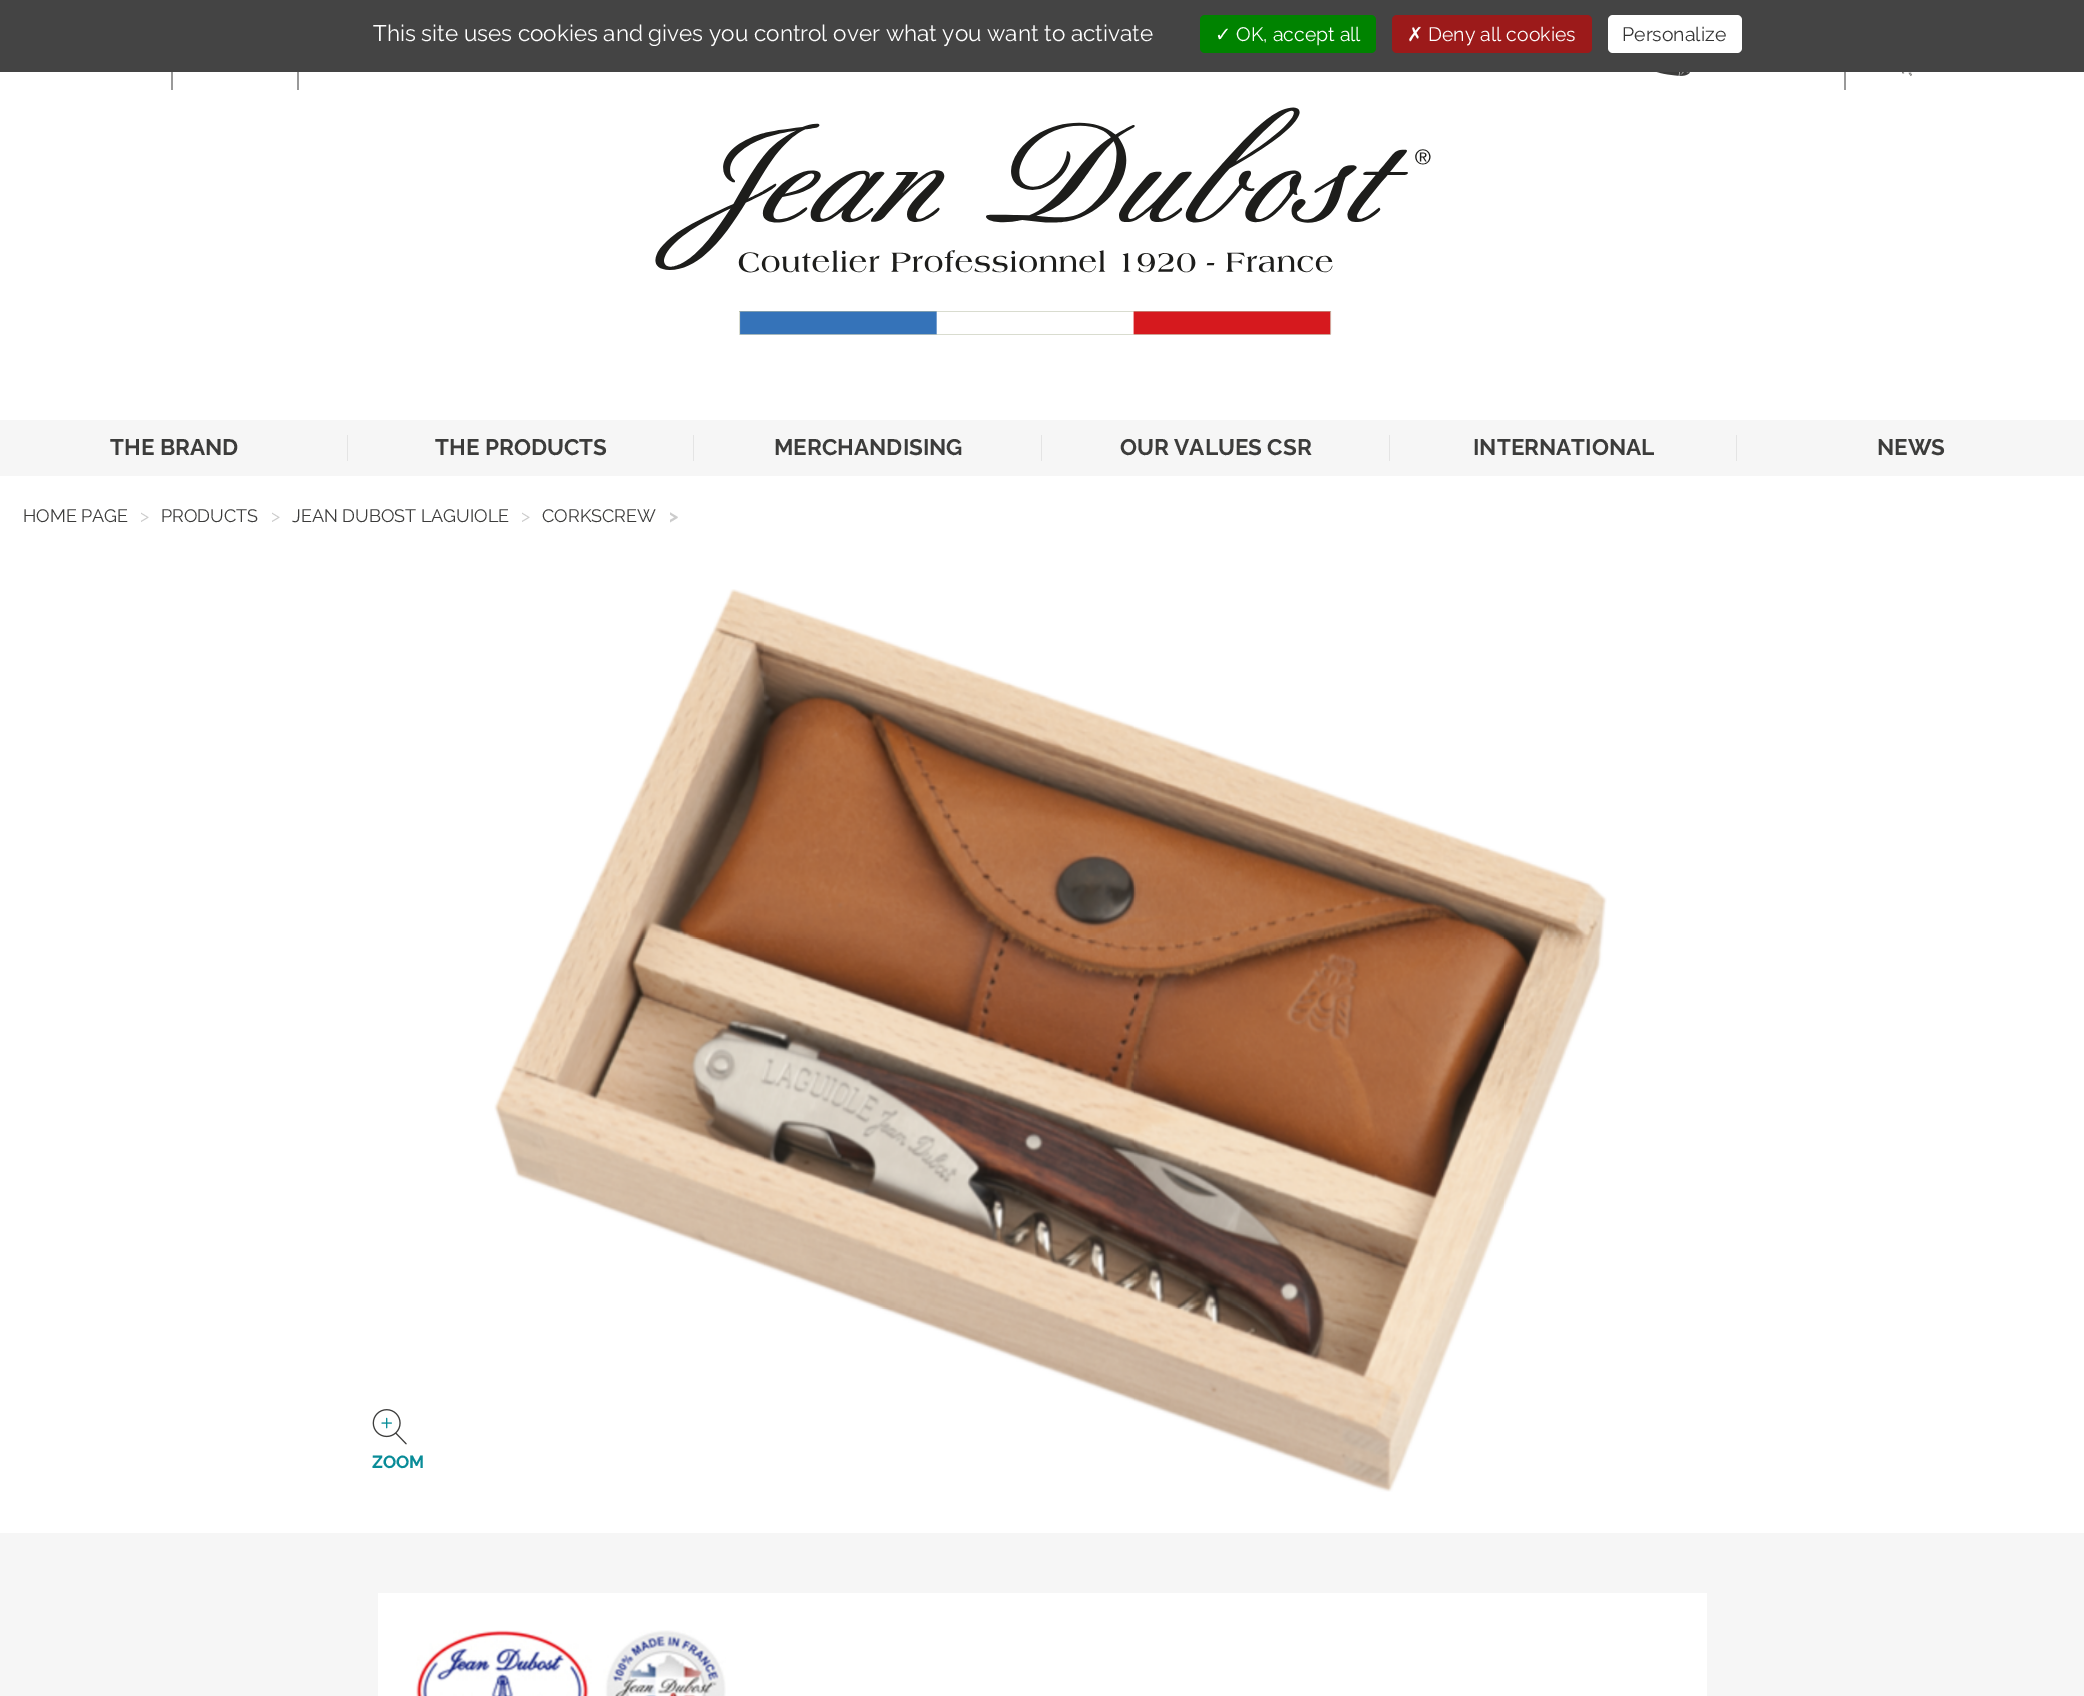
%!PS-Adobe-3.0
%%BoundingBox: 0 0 2084 1696
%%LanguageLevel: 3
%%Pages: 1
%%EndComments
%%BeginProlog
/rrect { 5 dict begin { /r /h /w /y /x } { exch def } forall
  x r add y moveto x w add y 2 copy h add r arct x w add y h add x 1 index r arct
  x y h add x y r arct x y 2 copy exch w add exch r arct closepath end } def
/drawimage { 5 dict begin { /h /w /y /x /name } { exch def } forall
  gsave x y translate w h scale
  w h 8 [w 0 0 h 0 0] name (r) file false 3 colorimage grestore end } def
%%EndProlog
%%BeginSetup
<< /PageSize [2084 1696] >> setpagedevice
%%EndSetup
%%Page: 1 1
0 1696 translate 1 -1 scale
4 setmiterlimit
1 setgray
0 0 2084 1696 rectfill
0.267 setgray
0 0 2084 72 rectfill
0 0.514 0 setrgbcolor
1200 15 176 38 5 rrect fill
0.612 0.102 0.102 setrgbcolor
1392 15 200 38 5 rrect fill
1 setgray
1608 15 134 38 5 rrect fill
0.6 setgray
171 72 2 18 rectfill
297 72 2 18 rectfill
1844 72 2 18 rectfill
(images/1.raw) 1656 72 34 4 drawimage
(images/2.raw) 1902 72 10 4 drawimage
(images/3.raw) 655 107 776 228 drawimage
0.965 setgray
0 420 2084 56 rectfill
0.894 setgray
347 435 1 26 rectfill
693 435 1 26 rectfill
1041 435 1 26 rectfill
1389 435 1 26 rectfill
1736 435 1 26 rectfill
(images/4.raw) 372 1409 35 36 drawimage
(images/5.raw) 494 589 1113 903 drawimage
0.965 setgray
0 1533 2084 163 rectfill
1 setgray
378 1593 1329 103 rectfill
(images/6.raw) 416 1630 310 66 drawimage
/Raleway-Regular [22.5 0 0 -22.5 0 0] selectfont
373 41 moveto (This site uses cookies and gives you control over what you want to activate) show
/DejaVuSans-Regular [19.5 0 0 -19.5 0 0] selectfont
1215 41 moveto (✓) show
/Raleway-Regular [19.5 0 0 -19.5 0 0] selectfont
1236 41 moveto (OK, accept all) show
/DejaVuSans-Regular [19.5 0 0 -19.5 0 0] selectfont
1407 41 moveto (✗) show
/Raleway-Regular [19.5 0 0 -19.5 0 0] selectfont
1428 41 moveto (Deny all cookies) show
0.2 setgray
1622 41 moveto (Personalize) show
/Raleway-Bold [22.5 0 0 -22.5 0 0] selectfont
0.235 0.235 0.231 setrgbcolor
110 455 moveto (THE BRAND) show
435 455 moveto (THE PRODUCTS) show
774 455 moveto (MERCHANDISING) show
1120 455 moveto (OUR VALUES CSR) show
1473 455 moveto (INTERNATIONAL) show
1877 455 moveto (NEWS) show
/Raleway-Regular [18 0 0 -18 0 0] selectfont
23 522 moveto (HOME PAGE) show
0.8 setgray
140 522 moveto (>) show
0.235 0.235 0.231 setrgbcolor
161 522 moveto (PRODUCTS) show
0.8 setgray
271 522 moveto (>) show
0.235 0.235 0.231 setrgbcolor
292 522 moveto (JEAN DUBOST LAGUIOLE) show
0.8 setgray
521 522 moveto (>) show
0.235 0.235 0.231 setrgbcolor
542 522 moveto (CORKSCREW) show
/Raleway-Bold [18 0 0 -18 0 0] selectfont
0.8 setgray
669 522 moveto (>) show
/Raleway-Bold [17.5 0 0 -17.5 0 0] selectfont
0.035 0.549 0.596 setrgbcolor
372 1468 moveto (ZOOM) show
showpage
%%EOF
